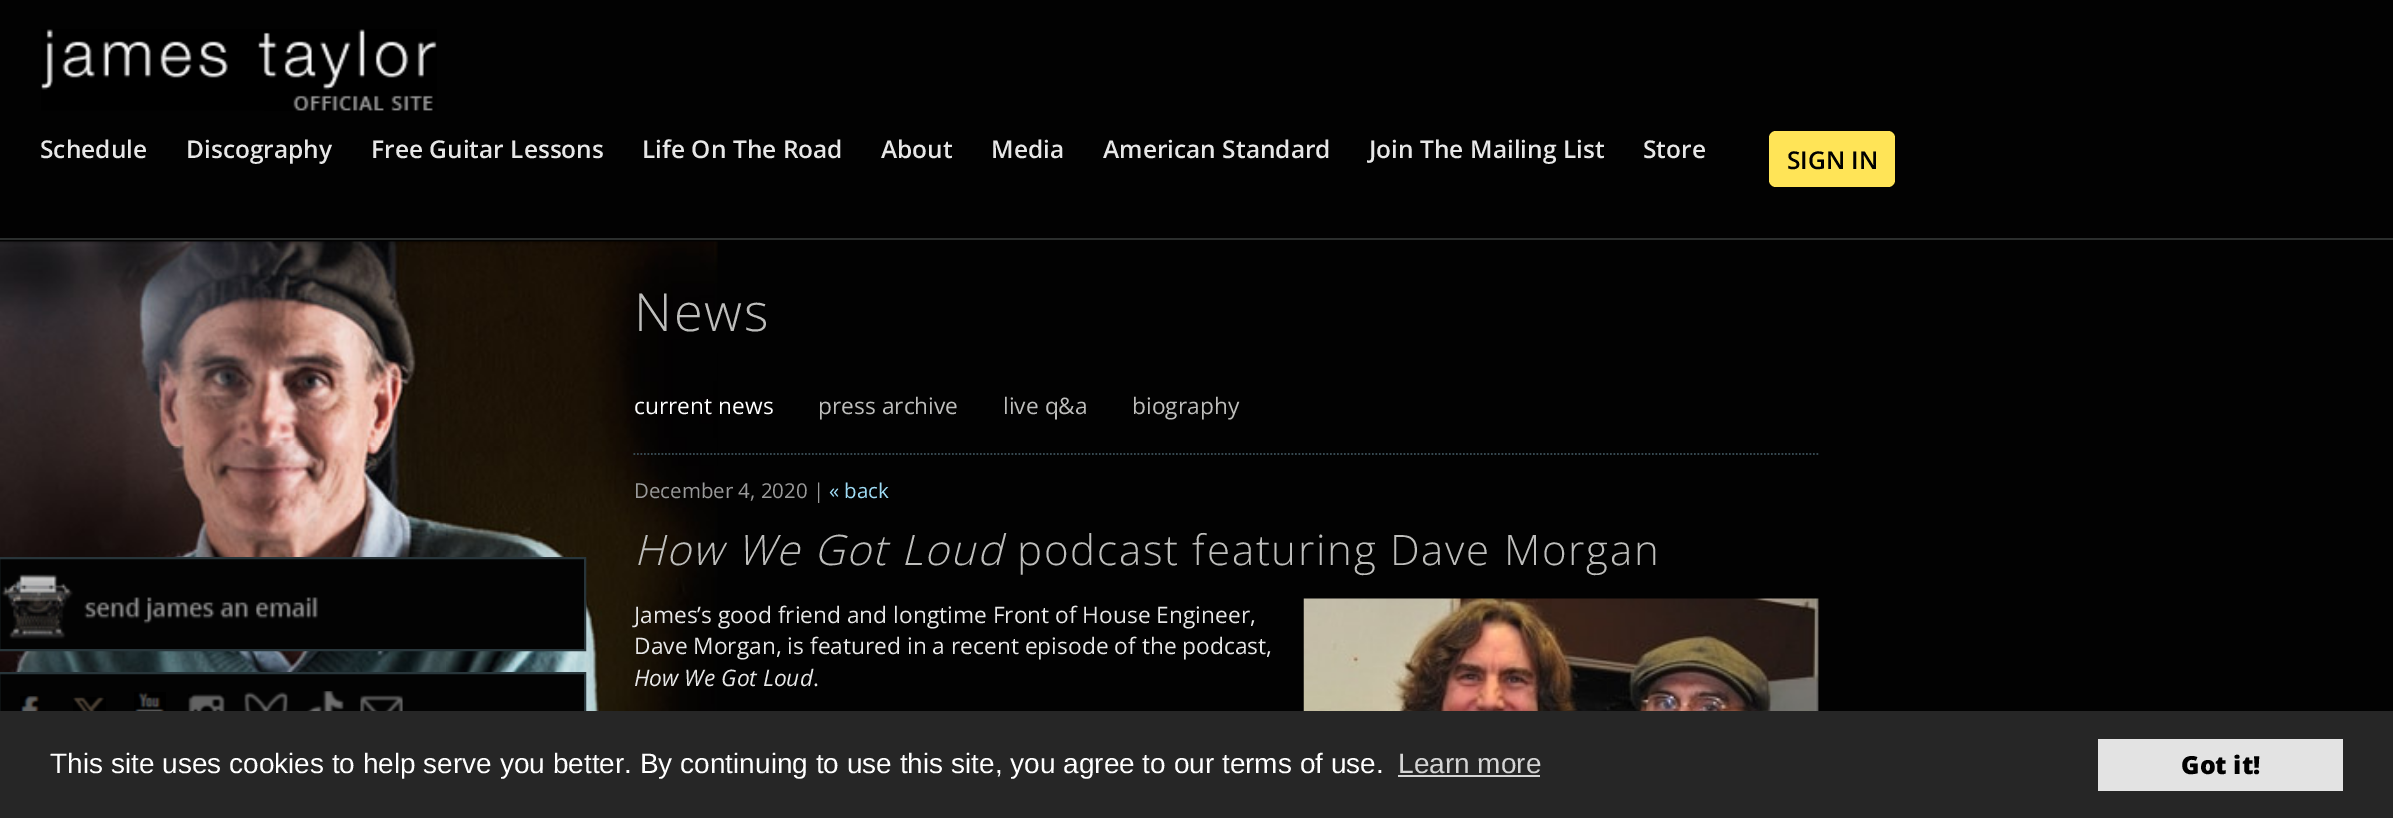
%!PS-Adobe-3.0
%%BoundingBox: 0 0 2393 818
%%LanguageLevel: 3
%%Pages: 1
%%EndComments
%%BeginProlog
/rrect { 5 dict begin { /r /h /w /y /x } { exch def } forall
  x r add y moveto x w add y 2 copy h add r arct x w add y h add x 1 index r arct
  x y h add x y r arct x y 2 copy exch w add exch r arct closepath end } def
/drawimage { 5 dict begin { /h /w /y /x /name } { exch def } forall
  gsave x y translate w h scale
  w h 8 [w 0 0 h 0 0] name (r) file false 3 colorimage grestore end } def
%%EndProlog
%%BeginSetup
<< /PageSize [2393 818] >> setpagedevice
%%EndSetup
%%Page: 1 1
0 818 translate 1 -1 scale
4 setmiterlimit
0.008 setgray
0 0 2393 818 rectfill
(images/1.raw) 0 241 718 470 drawimage
0.169 0.18 0.176 setrgbcolor
0 238 2393 2 rectfill
(images/2.raw) 41 29 396 82 drawimage
1 0.894 0.341 setrgbcolor
1769 131 126 56 7 rrect fill
0.012 setgray
newpath -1 558 moveto 585 558 lineto 585 650 lineto -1 650 lineto closepath gsave fill grestore
0.157 0.208 0.227 setrgbcolor
2 setlinewidth
stroke
(images/3.raw) 1 574 317 65 drawimage
0.012 setgray
0 674 584 37 rectfill
0.157 0.208 0.227 setrgbcolor
-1 673 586 93 rectstroke
(images/4.raw) 20 696 19 15 drawimage
(images/5.raw) 73 697 33 14 drawimage
(images/6.raw) 134 692 32 19 drawimage
(images/7.raw) 188 694 37 17 drawimage
(images/8.raw) 244 692 44 19 drawimage
(images/9.raw) 307 691 37 20 drawimage
(images/10.raw) 360 695 43 16 drawimage
0.212 0.282 0.314 setrgbcolor
1.8 setlinewidth
[1.75 1.75] 0 setdash
newpath 633.5 454 moveto 1820 454 lineto stroke
(images/11.raw) 1303 598 517 113 drawimage
0.149 setgray
0 711 2393 107 rectfill
0.831 setgray
1398 775 142 2 rectfill
0.89 setgray
2098 739 245 52 rectfill
/OpenSans-SemiBold [24.5 0 0 -24.5 0 0] selectfont
0.906 setgray
40 158 moveto (Schedule) show
186 158 moveto (Discography) show
371 158 moveto (Free Guitar Lessons) show
642 158 moveto (Life On The Road) show
881 158 moveto (About) show
991 158 moveto (Media) show
1103 158 moveto (American Standard) show
1369 158 moveto (Join The Mailing List) show
1643 158 moveto (Store) show
0 setgray
1787 169 moveto (SIGN IN) show
/OpenSans-Light [52.5 0 0 -52.5 0 0] selectfont
0.745 0.745 0.737 setrgbcolor
634 331 moveto 1.75 0 (News) ashow
/OpenSans-Regular [22.75 0 0 -22.75 0 0] selectfont
1 setgray
634 414 moveto (current news) show
0.745 0.745 0.737 setrgbcolor
818 414 moveto (press archive) show
1003 414 moveto (live q&a) show
1132 414 moveto (biography) show
/OpenSans-Regular [20.5 0 0 -20.5 0 0] selectfont
0.604 setgray
634 498 moveto (December 4, 2020 |) show
0.624 0.863 0.961 setrgbcolor
829 498 moveto (« back) show
/OpenSans-LightItalic [42 0 0 -42 0 0] selectfont
0.745 0.745 0.737 setrgbcolor
634 565 moveto 1.75 0 (How We Got Loud) ashow
/OpenSans-Light [42 0 0 -42 0 0] selectfont
1017 565 moveto 1.75 0 (podcast featuring Dave Morgan) ashow
/OpenSans-Regular [22.75 0 0 -22.75 0 0] selectfont
0.906 setgray
634 623 moveto (James’s good friend and longtime Front of House Engineer,) show
634 654 moveto (Dave Morgan, is featured in a recent episode of the podcast,) show
/OpenSans-Italic [22.75 0 0 -22.75 0 0] selectfont
634 686 moveto (How We Got Loud) show
/OpenSans-Regular [22.75 0 0 -22.75 0 0] selectfont
813 686 moveto (.) show
/LiberationSans-Regular [28 0 0 -28 0 0] selectfont
1 setgray
50 773 moveto (This site uses cookies to help serve you better. By continuing to use this site, you agree to our terms of use.) show
0.831 setgray
1398 773 moveto (Learn more) show
/OpenSans-ExtraBold [25 0 0 -25 0 0] selectfont
0 setgray
2181 774 moveto (Got it!) show
showpage
%%EOF
